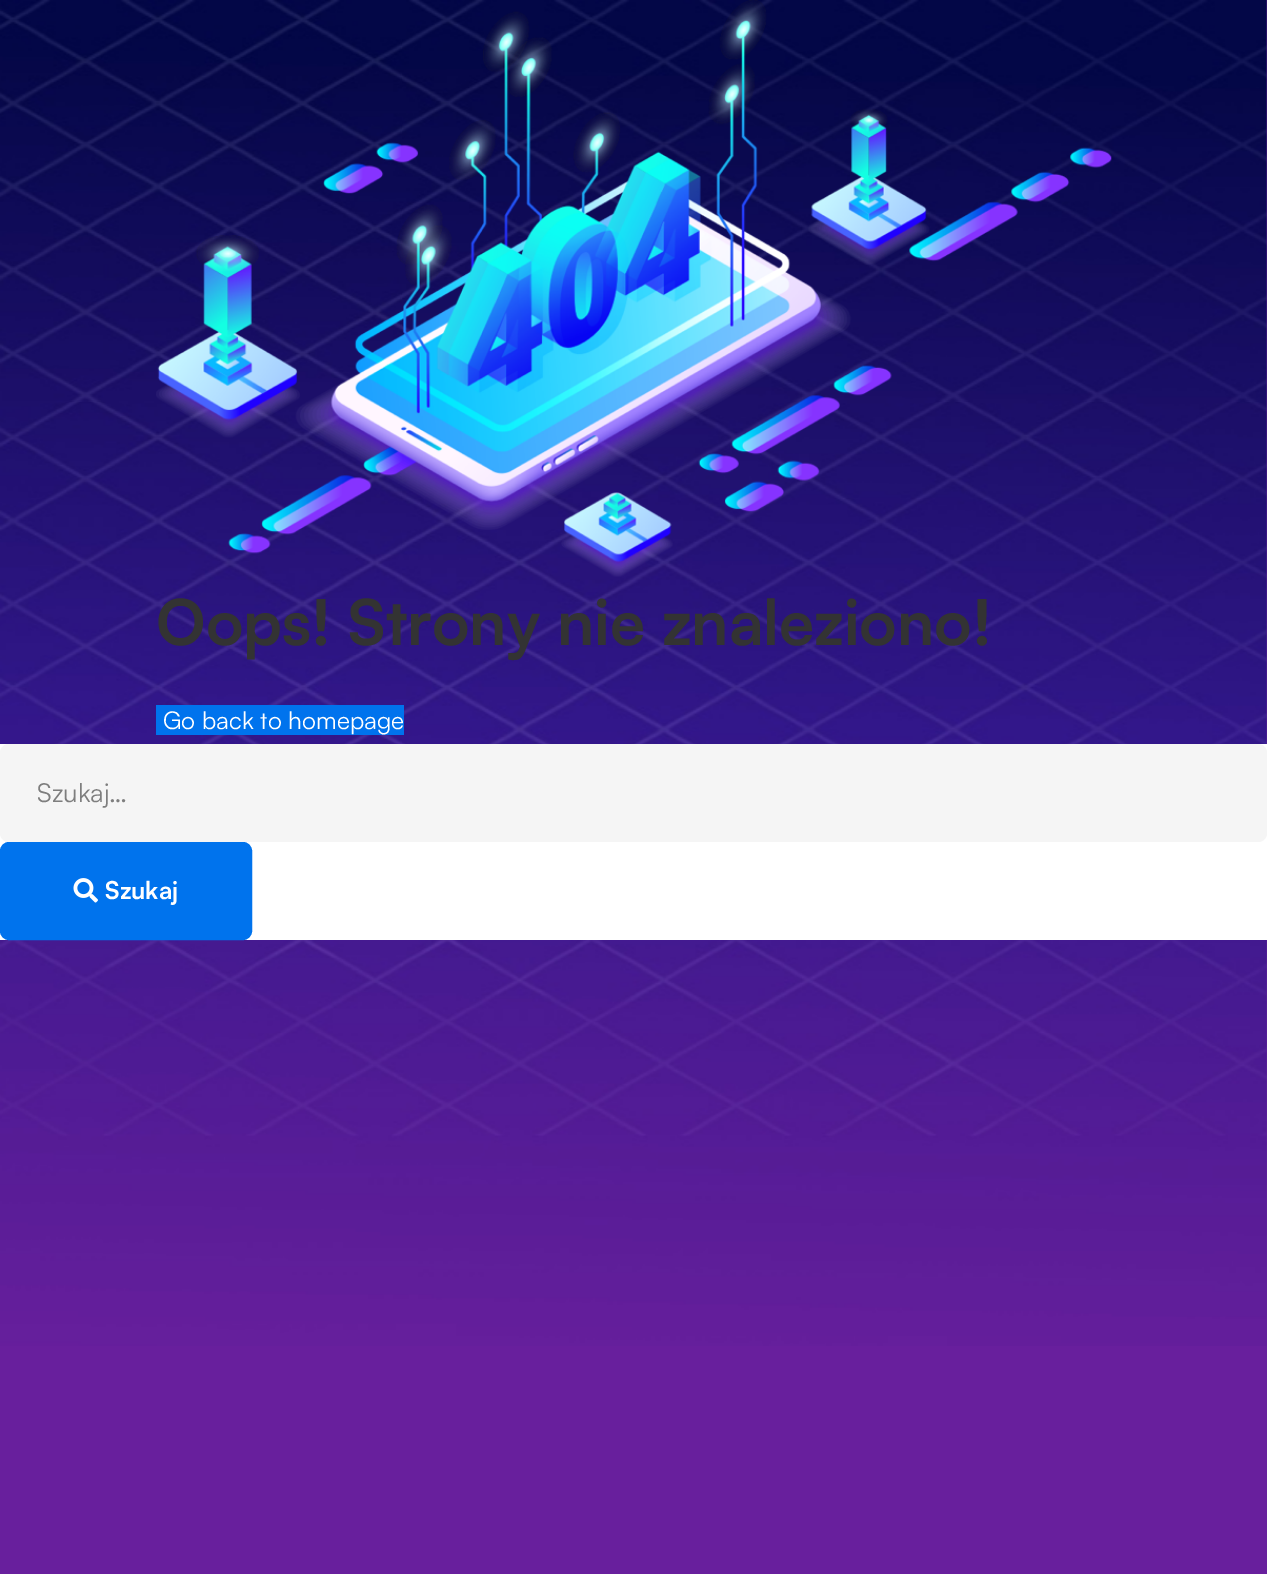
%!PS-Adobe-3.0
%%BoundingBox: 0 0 1267 1574
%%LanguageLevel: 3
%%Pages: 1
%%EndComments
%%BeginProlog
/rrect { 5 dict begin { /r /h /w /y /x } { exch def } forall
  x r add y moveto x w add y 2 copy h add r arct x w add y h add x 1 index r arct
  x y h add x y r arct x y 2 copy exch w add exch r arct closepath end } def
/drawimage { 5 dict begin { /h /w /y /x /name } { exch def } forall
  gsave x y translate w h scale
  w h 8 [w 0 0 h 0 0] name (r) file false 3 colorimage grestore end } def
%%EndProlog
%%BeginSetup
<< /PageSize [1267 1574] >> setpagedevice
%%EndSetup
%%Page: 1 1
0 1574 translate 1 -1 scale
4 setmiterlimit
0.408 0.122 0.616 setrgbcolor
0 0 1267 1574 rectfill
(images/1.raw) 0 0 1267 1346 drawimage
(images/2.raw) 156 0 956 577 drawimage
0 0.451 0.929 setrgbcolor
156 705 248 30 rectfill
1 setgray
0 744 1267 196 rectfill
0.961 setgray
0 744 1267 98 9 rrect fill
0 0.451 0.929 setrgbcolor
1 843 250 96 8 rrect gsave fill grestore
2 setlinewidth
stroke
(images/3.raw) 73 878 25 25 drawimage
/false-Bold [63 0 0 -63 0 0] selectfont
0.2 setgray
156 645 moveto (Oops! Strony nie znaleziono!) show
/false-Regular [24.5 0 0 -24.5 0 0] selectfont
1 setgray
163 729 moveto (Go back to homepage) show
/false-Regular [26 0 0 -26 0 0] selectfont
0.494 setgray
37 802 moveto (Szukaj…) show
/false-Bold [24.5 0 0 -24.5 0 0] selectfont
1 setgray
105 899 moveto (Szukaj) show
showpage
%%EOF
